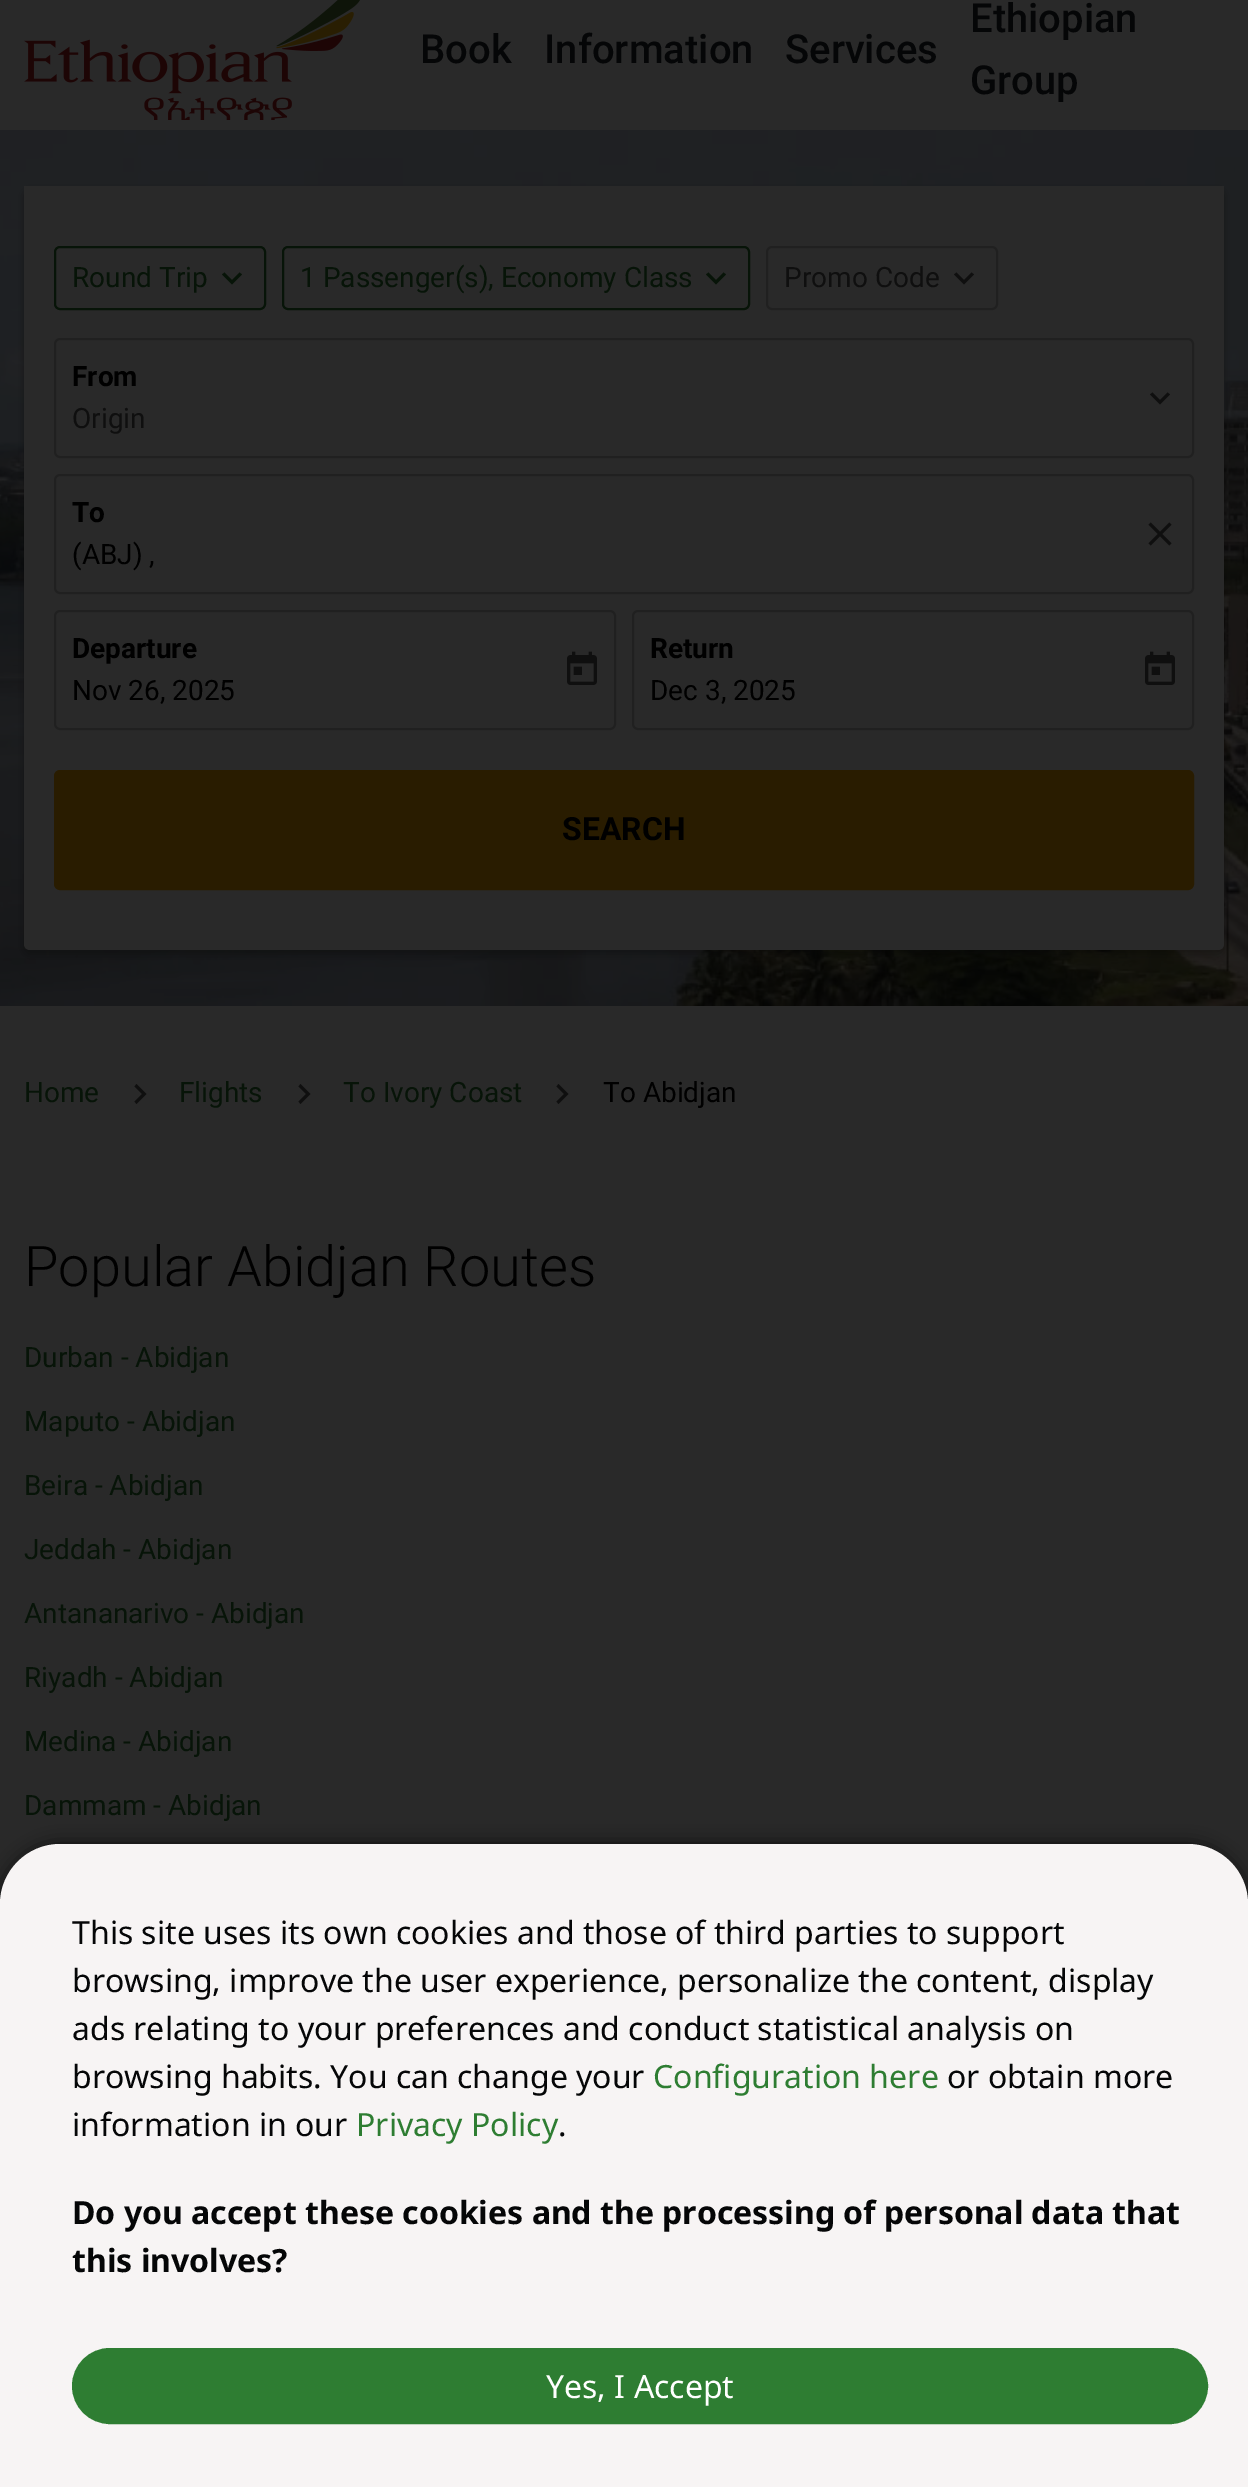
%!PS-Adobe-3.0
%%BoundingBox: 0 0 1248 2487
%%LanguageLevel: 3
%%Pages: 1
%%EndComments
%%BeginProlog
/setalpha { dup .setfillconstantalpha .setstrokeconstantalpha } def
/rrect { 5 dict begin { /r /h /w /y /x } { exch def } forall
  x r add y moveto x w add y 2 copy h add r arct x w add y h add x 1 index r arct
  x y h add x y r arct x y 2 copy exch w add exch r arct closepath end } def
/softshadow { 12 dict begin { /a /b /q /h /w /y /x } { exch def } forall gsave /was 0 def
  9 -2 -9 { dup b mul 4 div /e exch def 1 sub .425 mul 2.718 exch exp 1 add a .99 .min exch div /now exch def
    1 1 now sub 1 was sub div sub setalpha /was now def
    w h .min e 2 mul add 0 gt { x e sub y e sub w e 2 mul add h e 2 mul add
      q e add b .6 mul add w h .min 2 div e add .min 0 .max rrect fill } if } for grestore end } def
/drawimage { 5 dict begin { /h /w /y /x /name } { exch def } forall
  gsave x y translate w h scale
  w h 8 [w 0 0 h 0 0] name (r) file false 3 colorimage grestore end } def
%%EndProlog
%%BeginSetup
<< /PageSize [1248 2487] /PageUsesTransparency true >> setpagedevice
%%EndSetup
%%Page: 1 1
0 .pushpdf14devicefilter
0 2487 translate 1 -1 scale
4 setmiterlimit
0.161 setgray
0 0 1248 2487 rectfill
(images/1.raw) 24 0 336 120 drawimage
(images/2.raw) 0 130 1248 876 drawimage
0 setgray
24 190 1200 764 6 5 0.3 softshadow
0.161 setgray
newpath 24 186 moveto 1224 186 lineto 1224 944 lineto 1224 947.5 1221.5 950 1218 950 curveto 30 950 lineto 26.5 950 24 947.5 24 944 curveto closepath fill
0.027 0.078 0.031 setrgbcolor
2 setlinewidth
55 247 210 62 5 rrect stroke
newpath 239.5 272.5 moveto 242 274.5 lineto 232 284.5 lineto 222 274.5 lineto 224.5 272.5 lineto 232 280 lineto closepath fill
283 247 466 62 5 rrect stroke
newpath 723.5 272.5 moveto 726 274.5 lineto 716 284.5 lineto 706 274.5 lineto 708.5 272.5 lineto 716 280 lineto closepath fill
0.125 setgray
767 247 230 62 5 rrect stroke
0.059 setgray
newpath 971.5 272.5 moveto 974 274.5 lineto 964 284.5 lineto 954 274.5 lineto 956.5 272.5 lineto 964 280 lineto closepath fill
0.125 setgray
55 339 1138 118 5 rrect stroke
0.059 setgray
newpath 1167.5 392.5 moveto 1170 394.5 lineto 1160 404.5 lineto 1150 394.5 lineto 1152.5 392.5 lineto 1160 400 lineto closepath fill
0.125 setgray
55 475 1138 118 5 rrect stroke
(images/3.raw) 1148 522 24 24 drawimage
55 611 560 118 5 rrect stroke
(images/4.raw) 567 651 30 34 drawimage
633 611 560 118 5 rrect stroke
(images/4.raw) 1145 651 30 34 drawimage
0.161 0.11 0 setrgbcolor
55 771 1138 118 5 rrect gsave fill grestore
stroke
0.059 setgray
newpath 134.5 1101.5 moveto 142 1094 lineto 134.5 1086.5 lineto 136.5 1084 lineto 146.5 1094 lineto 136.5 1104 lineto closepath fill
newpath 298.5 1101.5 moveto 306 1094 lineto 298.5 1086.5 lineto 300.5 1084 lineto 310.5 1094 lineto 300.5 1104 lineto closepath fill
newpath 556.5 1101.5 moveto 564 1094 lineto 556.5 1086.5 lineto 558.5 1084 lineto 568.5 1094 lineto 558.5 1104 lineto closepath fill
0 setgray
0 1844 1248 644 60 9 0.7 softshadow
0.969 0.957 0.957 setrgbcolor
newpath 60 1844 moveto 1188 1844 lineto 1221 1844 1248 1871 1248 1904 curveto 1248 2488 lineto 0 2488 lineto 0 1904 lineto 0 1871 27 1844 60 1844 curveto closepath fill
0.18 0.49 0.196 setrgbcolor
73 2349 1134 74 37 rrect gsave fill grestore
stroke
/Roboto-Medium [40 0 0 -40 0 0] selectfont
0.02 0.024 0.027 setrgbcolor
420 63 moveto (Book) show
544 63 moveto (Information) show
785 63 moveto (Services) show
970 32 moveto (Ethiopian) show
970 94 moveto (Group) show
/Roboto-Regular [28 0 0 -28 0 0] selectfont
0.027 0.078 0.031 setrgbcolor
72 287 moveto (Round Trip) show
300 287 moveto (1 Passenger\(s\), Economy Class) show
0.059 setgray
784 287 moveto (Promo Code) show
/Roboto-Bold [28 0 0 -28 0 0] selectfont
0 setgray
72 386 moveto (From) show
/Roboto-Regular [28 0 0 -28 0 0] selectfont
0.059 setgray
72 428 moveto (Origin) show
/Roboto-Bold [28 0 0 -28 0 0] selectfont
0 setgray
72 522 moveto (To) show
/Roboto-Regular [28 0 0 -28 0 0] selectfont
72 564 moveto (\(ABJ\) ,) show
/Roboto-Bold [28 0 0 -28 0 0] selectfont
72 658 moveto (Departure) show
/Roboto-Regular [28 0 0 -28 0 0] selectfont
72 700 moveto (Nov 26, 2025) show
/Roboto-Bold [28 0 0 -28 0 0] selectfont
650 658 moveto (Return) show
/Roboto-Regular [28 0 0 -28 0 0] selectfont
650 700 moveto (Dec 3, 2025) show
/Roboto-Bold [32 0 0 -32 0 0] selectfont
562 840 moveto (SEARCH) show
/Roboto-Regular [28 0 0 -28 0 0] selectfont
0.027 0.078 0.031 setrgbcolor
24 1102 moveto (Home) show
179 1102 moveto (Flights) show
343 1102 moveto (To Ivory Coast) show
0 setgray
603 1102 moveto (To Abidjan) show
/Roboto-Light [56 0 0 -56 0 0] selectfont
24 1286 moveto (Popular Abidjan Routes) show
/Roboto-Regular [28 0 0 -28 0 0] selectfont
0.027 0.078 0.031 setrgbcolor
24 1367 moveto (Durban - Abidjan) show
24 1431 moveto (Maputo - Abidjan) show
24 1495 moveto (Beira - Abidjan) show
24 1559 moveto (Jeddah - Abidjan) show
24 1623 moveto (Antananarivo - Abidjan) show
24 1687 moveto (Riyadh - Abidjan) show
24 1751 moveto (Medina - Abidjan) show
24 1815 moveto (Dammam - Abidjan) show
/NotoSans-Regular [32 0 0 -32 0 0] selectfont
0.02 0.024 0.027 setrgbcolor
72 1944 moveto (This site uses its own cookies and those of third parties to support) show
72 1992 moveto (browsing, improve the user experience, personalize the content, display) show
72 2040 moveto (ads relating to your preferences and conduct statistical analysis on) show
72 2088 moveto (browsing habits. You can change your) show
0.18 0.49 0.196 setrgbcolor
653 2088 moveto (Configuration here) show
0.02 0.024 0.027 setrgbcolor
947 2088 moveto (or obtain more) show
72 2136 moveto (information in our) show
0.18 0.49 0.196 setrgbcolor
356 2136 moveto (Privacy Policy) show
0.02 0.024 0.027 setrgbcolor
558 2136 moveto (.) show
/NotoSans-Bold [32 0 0 -32 0 0] selectfont
72 2224 moveto (Do you accept these cookies and the processing of personal data that) show
72 2272 moveto (this involves?) show
/NotoSans-Regular [32 0 0 -32 0 0] selectfont
1 setgray
546 2398 moveto (Yes, I Accept) show
.poppdf14devicefilter showpage
%%EOF
